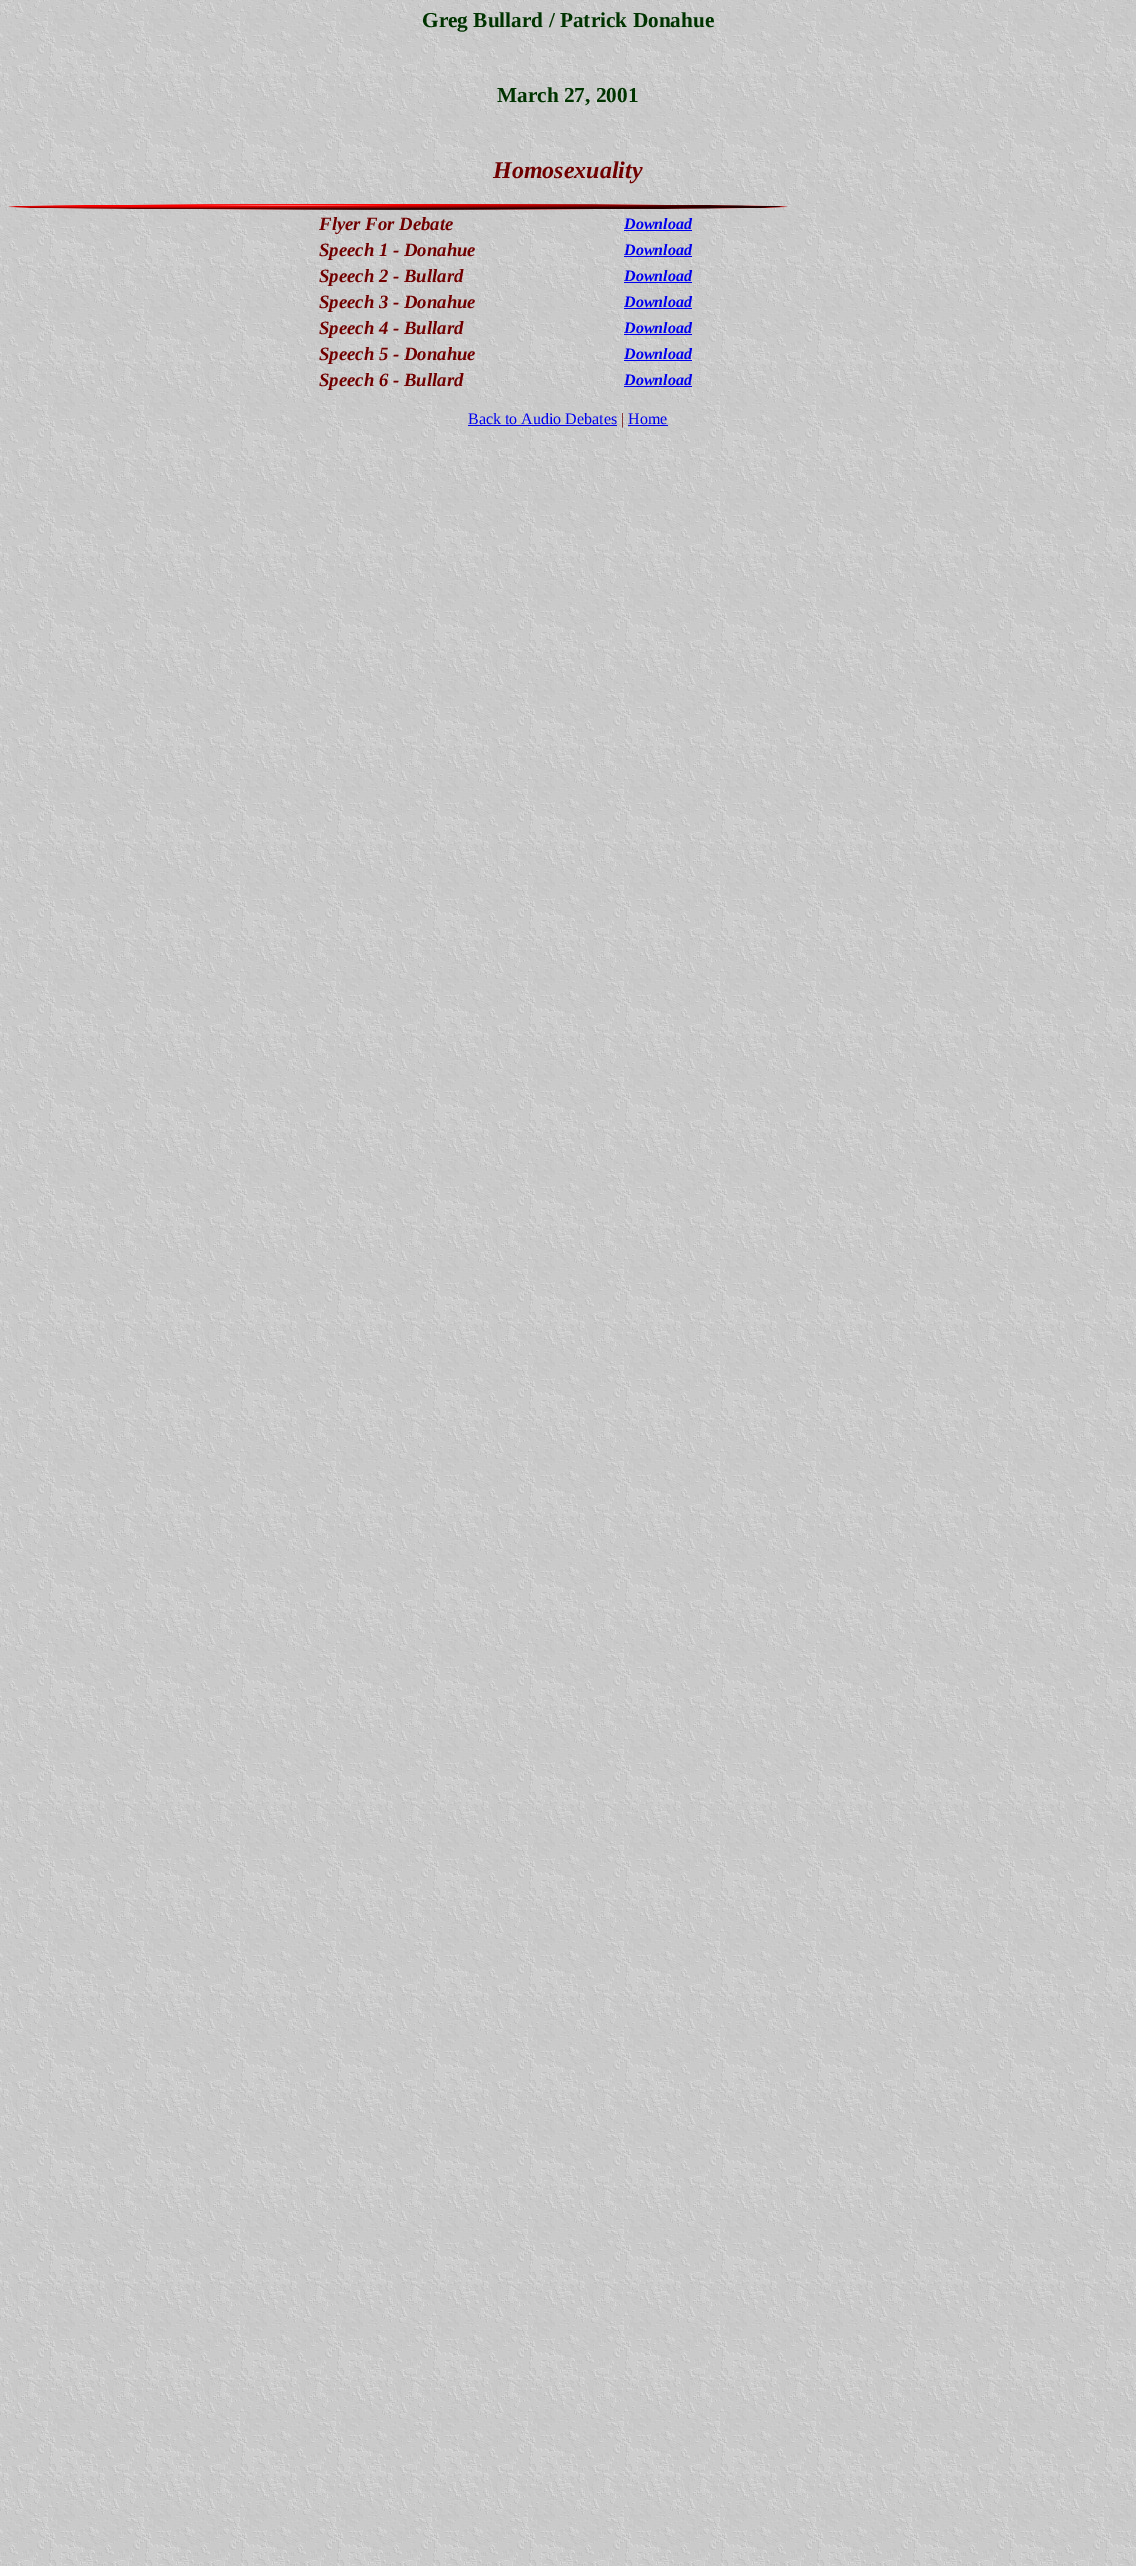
%!PS-Adobe-3.0
%%BoundingBox: 0 0 1136 2566
%%LanguageLevel: 3
%%Pages: 1
%%EndComments
%%BeginProlog
/drawimage { 5 dict begin { /h /w /y /x /name } { exch def } forall
  gsave x y translate w h scale
  w h 8 [w 0 0 h 0 0] name (r) file false 3 colorimage grestore end } def
%%EndProlog
%%BeginSetup
<< /PageSize [1136 2566] >> setpagedevice
%%EndSetup
%%Page: 1 1
0 2566 translate 1 -1 scale
4 setmiterlimit
1 setgray
0 0 1136 2566 rectfill
(images/1.raw) 0 0 1136 2566 drawimage
(images/2.raw) 8 204 780 6 drawimage
0 0 0.933 setrgbcolor
624 230 68 1 rectfill
624 256 68 1 rectfill
624 282 68 1 rectfill
624 308 68 1 rectfill
624 334 68 1 rectfill
624 360 68 1 rectfill
624 386 68 1 rectfill
468 425 149 1 rectfill
628 425 40 1 rectfill
/LiberationSerif-Bold [21.3 0 0 -21.3 0 0] selectfont
0 0.2 0 setrgbcolor
422 27 moveto (Greg Bullard / Patrick Donahue) show
497 102 moveto (March 27, 2001) show
/LiberationSerif-BoldItalic [24 0 0 -24 0 0] selectfont
0.439 0 0 setrgbcolor
493 178 moveto (Homosexuality) show
/LiberationSerif-BoldItalic [18.75 0 0 -18.75 0 0] selectfont
319 230 moveto (Flyer For Debate) show
/LiberationSerif-BoldItalic [16 0 0 -16 0 0] selectfont
0 0 0.933 setrgbcolor
624 229 moveto (Download) show
/LiberationSerif-BoldItalic [18.75 0 0 -18.75 0 0] selectfont
0.439 0 0 setrgbcolor
319 256 moveto (Speech 1 - Donahue) show
/LiberationSerif-BoldItalic [16 0 0 -16 0 0] selectfont
0 0 0.933 setrgbcolor
624 255 moveto (Download) show
/LiberationSerif-BoldItalic [18.75 0 0 -18.75 0 0] selectfont
0.439 0 0 setrgbcolor
319 282 moveto (Speech 2 - Bullard) show
/LiberationSerif-BoldItalic [16 0 0 -16 0 0] selectfont
0 0 0.933 setrgbcolor
624 281 moveto (Download) show
/LiberationSerif-BoldItalic [18.75 0 0 -18.75 0 0] selectfont
0.439 0 0 setrgbcolor
319 308 moveto (Speech 3 - Donahue) show
/LiberationSerif-BoldItalic [16 0 0 -16 0 0] selectfont
0 0 0.933 setrgbcolor
624 307 moveto (Download) show
/LiberationSerif-BoldItalic [18.75 0 0 -18.75 0 0] selectfont
0.439 0 0 setrgbcolor
319 334 moveto (Speech 4 - Bullard) show
/LiberationSerif-BoldItalic [16 0 0 -16 0 0] selectfont
0 0 0.933 setrgbcolor
624 333 moveto (Download) show
/LiberationSerif-BoldItalic [18.75 0 0 -18.75 0 0] selectfont
0.439 0 0 setrgbcolor
319 360 moveto (Speech 5 - Donahue) show
/LiberationSerif-BoldItalic [16 0 0 -16 0 0] selectfont
0 0 0.933 setrgbcolor
624 359 moveto (Download) show
/LiberationSerif-BoldItalic [18.75 0 0 -18.75 0 0] selectfont
0.439 0 0 setrgbcolor
319 386 moveto (Speech 6 - Bullard) show
/LiberationSerif-BoldItalic [16 0 0 -16 0 0] selectfont
0 0 0.933 setrgbcolor
624 385 moveto (Download) show
/LiberationSerif-Regular [16 0 0 -16 0 0] selectfont
468 424 moveto (Back to Audio Debates) show
0.439 0 0 setrgbcolor
621 424 moveto (|) show
0 0 0.933 setrgbcolor
628 424 moveto (Home) show
showpage
%%EOF
